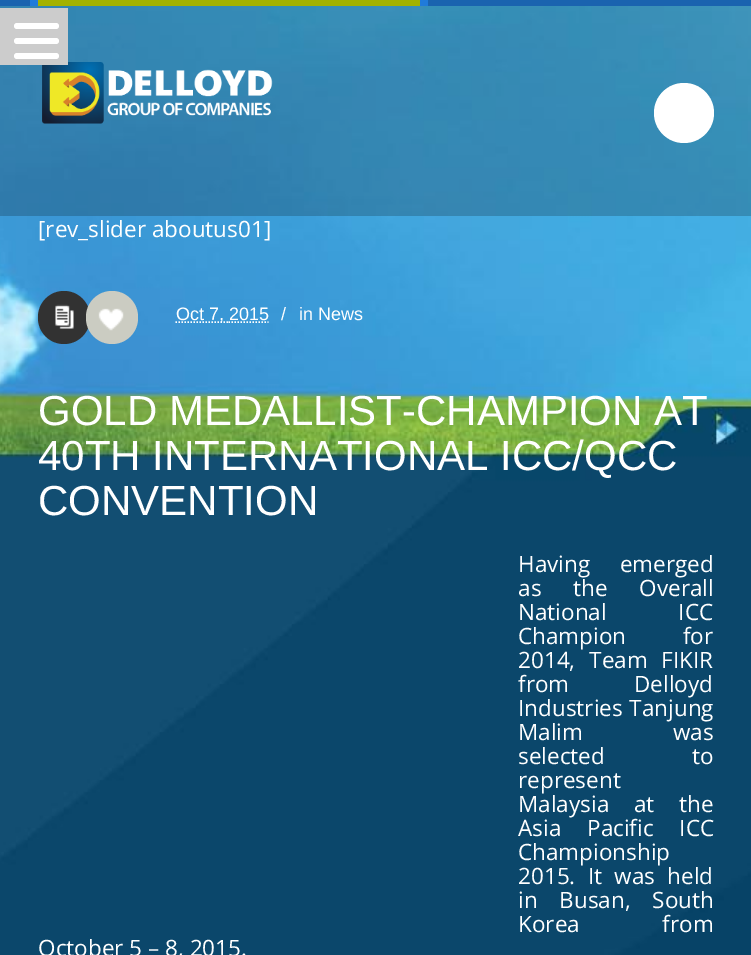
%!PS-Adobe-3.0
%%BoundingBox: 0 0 751 955
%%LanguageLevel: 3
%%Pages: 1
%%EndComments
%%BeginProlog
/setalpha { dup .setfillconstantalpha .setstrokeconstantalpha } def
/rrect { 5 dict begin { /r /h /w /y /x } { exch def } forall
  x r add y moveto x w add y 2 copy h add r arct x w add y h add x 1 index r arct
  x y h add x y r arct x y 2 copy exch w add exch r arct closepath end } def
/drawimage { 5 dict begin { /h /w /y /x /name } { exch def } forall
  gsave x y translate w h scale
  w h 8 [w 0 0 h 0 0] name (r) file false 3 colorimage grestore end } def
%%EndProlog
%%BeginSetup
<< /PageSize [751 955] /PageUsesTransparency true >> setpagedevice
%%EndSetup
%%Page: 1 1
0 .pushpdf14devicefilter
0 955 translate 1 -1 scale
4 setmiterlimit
1 setgray
0 0 751 955 rectfill
(images/1.raw) 0 6 751 949 drawimage
0.2 setalpha
0 setgray
0 6 751 210 rectfill
1 setalpha
(images/2.raw) 42 62 231 62 drawimage
0.8 setgray
0 8 68 57 rectfill
1 setgray
14 23 45 6 3 rrect fill
14 38 45 6 3 rrect fill
14 53 45 6 3 rrect fill
0.102 0.388 0.686 setrgbcolor
0 0 751 6 rectfill
0.639 0.698 0 setrgbcolor
30 0 398 6 rectfill
0.125 0.482 0.855 setrgbcolor
420 0 8 6 rectfill
30 0 8 6 rectfill
1 setgray
newpath 684 113 30 0 360 arc closepath fill
0.196 setgray
38 291 52 53 26 rrect fill
(images/3.raw) 55 304 19 25 drawimage
0.796 0.8 0.761 setrgbcolor
86 291 52 53 26 rrect fill
(images/4.raw) 98 308 26 23 drawimage
1 setgray
1.5 setlinewidth
[1.5 1.5] 0 setdash
newpath 175.5 322 moveto 208.5 322 lineto stroke
newpath 208.5 322 moveto 228.5 322 lineto stroke
newpath 228.5 322 moveto 268.5 322 lineto stroke
/OpenSans-Regular [22.5 0 0 -22.5 0 0] selectfont
38 237 moveto ([rev_slider aboutus01]) show
/LiberationSans-Regular [18 0 0 -18 0 0] selectfont
176 320 moveto (Oct) show
209 320 moveto (7, 2015) show
281 320 moveto (/) show
299 320 moveto (in News) show
/LiberationSans-Regular [42 0 0 -42 0 0] selectfont
38 425 moveto (GOLD MEDALLIST-CHAMPION AT) show
38 470 moveto (40TH INTERNATIONAL ICC/QCC) show
38 515 moveto (CONVENTION) show
/OpenSans-Regular [22.5 0 0 -22.5 0 0] selectfont
518 572 moveto 24 0 32 (Having emerged) widthshow
518 596 moveto 26 0 32 (as the Overall) widthshow
518 620 moveto 66 0 32 (National ICC) widthshow
518 644 moveto 51 0 32 (Champion for) widthshow
518 668 moveto 8 0 32 (2014, Team FIKIR) widthshow
518 692 moveto 59 0 32 (from Delloyd) widthshow
518 716 moveto 1 0 32 (Industries Tanjung) widthshow
518 740 moveto 84 0 32 (Malim was) widthshow
518 764 moveto 81 0 32 (selected to) widthshow
518 788 moveto (represent) show
518 812 moveto 19 0 32 (Malaysia at the) widthshow
518 836 moveto 20 0 32 (Asia Pacific ICC) widthshow
518 860 moveto (Championship) show
518 884 moveto 6.5 0 32 (2015. It was held) widthshow
518 908 moveto 16 0 32 (in Busan, South) widthshow
518 932 moveto 77 0 32 (Korea from) widthshow
38 956 moveto (October 5 – 8, 2015.) show
.poppdf14devicefilter showpage
%%EOF
